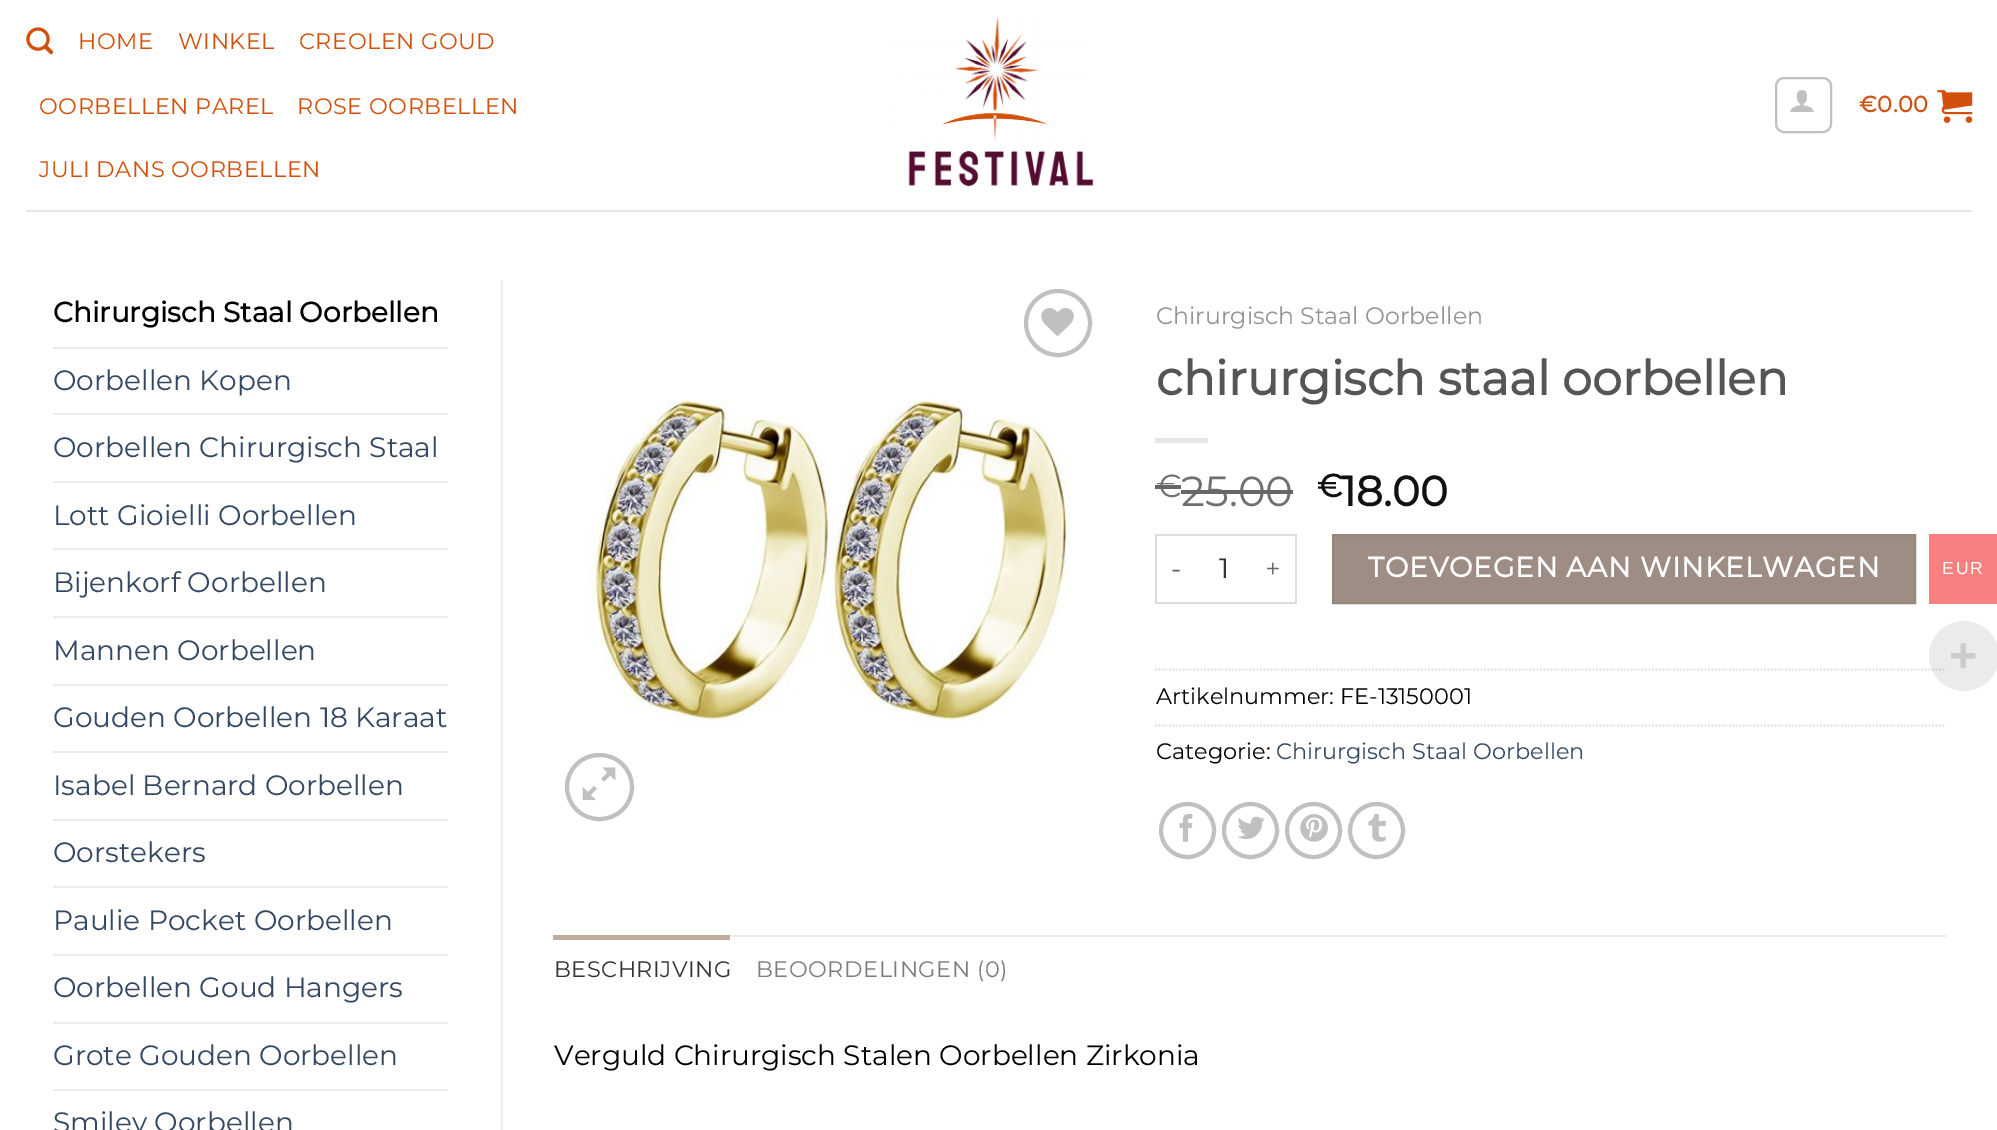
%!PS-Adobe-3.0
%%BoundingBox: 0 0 1997 1130
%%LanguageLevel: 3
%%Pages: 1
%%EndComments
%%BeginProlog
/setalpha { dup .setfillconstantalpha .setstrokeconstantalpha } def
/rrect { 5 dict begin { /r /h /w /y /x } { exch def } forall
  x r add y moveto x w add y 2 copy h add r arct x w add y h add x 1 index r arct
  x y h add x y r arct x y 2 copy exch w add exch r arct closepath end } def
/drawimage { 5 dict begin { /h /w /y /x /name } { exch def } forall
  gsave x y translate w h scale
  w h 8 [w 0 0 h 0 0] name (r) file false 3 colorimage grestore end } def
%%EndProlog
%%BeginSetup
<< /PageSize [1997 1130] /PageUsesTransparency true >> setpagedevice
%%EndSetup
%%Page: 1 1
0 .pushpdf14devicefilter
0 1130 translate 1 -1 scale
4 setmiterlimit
1 setgray
0 0 1997 1130 rectfill
(images/1.raw) 26 27 28 28 drawimage
(images/2.raw) 895 12 199 174 drawimage
0.753 setgray
2 setlinewidth
1776 78 55 54 8 rrect stroke
(images/3.raw) 1790 90 24 22 drawimage
(images/4.raw) 1937 90 36 33 drawimage
0.902 setgray
26 210 1946 2 rectfill
0.925 setgray
53 347 395 2 rectfill
53 413 395 2 rectfill
53 481 395 2 rectfill
53 548 395 2 rectfill
53 616 395 2 rectfill
53 684 395 2 rectfill
53 751 395 2 rectfill
53 819 395 2 rectfill
53 886 395 2 rectfill
53 954 395 2 rectfill
53 1022 395 2 rectfill
53 1089 395 2 rectfill
501 280 2 850 rectfill
0.753 setgray
4 setlinewidth
newpath 1058 323 32 0 360 arc closepath stroke
(images/5.raw) 1041 308 33 28 drawimage
(images/6.raw) 589 399 481 330 drawimage
567 755 65 64 32 rrect stroke
(images/7.raw) 582 767 34 34 drawimage
0.902 setgray
1155 438 53 5 rectfill
0.867 setgray
1155 534 142 2 rectfill
1155 602 96 2 rectfill
1155 534 2 70 rectfill
1295 534 2 70 rectfill
1251 602 46 2 rectfill
0.62 0.553 0.518 setrgbcolor
newpath 1333 535 moveto 1915 535 lineto 1915 603 lineto 1333 603 lineto closepath gsave fill grestore
0.588 0.525 0.49 setrgbcolor
2 setlinewidth
stroke
0.867 setgray
1.8 setlinewidth
[1.75 1.75] 0 setdash
newpath 1155 669.5 moveto 1946 669.5 lineto stroke
newpath 1155 725.5 moveto 1946 725.5 lineto stroke
0.753 setgray
4 setlinewidth
[] 0 setdash
newpath 1187.5 830.5 26.5 0 360 arc closepath stroke
(images/8.raw) 1179 814 14 28 drawimage
newpath 1250.5 830.5 26.5 0 360 arc closepath stroke
(images/9.raw) 1237 816 28 24 drawimage
newpath 1313.5 830.5 26.5 0 360 arc closepath stroke
(images/10.raw) 1300 814 28 28 drawimage
newpath 1376.5 830.5 26.5 0 360 arc closepath stroke
(images/11.raw) 1368 814 18 28 drawimage
0.925 setgray
730 935 1216 2 rectfill
0.769 0.667 0.608 setrgbcolor
553 935 177 5 rectfill
0.969 0.502 0.502 setrgbcolor
1929 534 68 70 rectfill
0.2 setalpha
0.6 setgray
newpath 1964 656 35 0 360 arc closepath fill
/Montserrat-Regular [22.4 0 0 -22.4 0 0] selectfont
1 setalpha
0.827 0.314 0.047 setrgbcolor
78 49 moveto 0.5 0 (HOME) ashow
178 49 moveto 0.5 0 (WINKEL) ashow
299 49 moveto 0.5 0 (CREOLEN GOUD) ashow
39 114 moveto 0.5 0 (OORBELLEN PAREL) ashow
297 114 moveto 0.5 0 (ROSE OORBELLEN) ashow
39 177 moveto 0.5 0 (JULI DANS OORBELLEN) ashow
/Montserrat-Bold [22.4 0 0 -22.4 0 0] selectfont
1859 112 moveto 0.5 0 (€0.00) ashow
/Montserrat-Bold [28 0 0 -28 0 0] selectfont
0 setgray
53 322 moveto (Chirurgisch Staal Oorbellen) show
/Montserrat-Regular [28 0 0 -28 0 0] selectfont
0.2 0.282 0.384 setrgbcolor
53 390 moveto (Oorbellen Kopen) show
53 457 moveto (Oorbellen Chirurgisch Staal) show
53 525 moveto (Lott Gioielli Oorbellen) show
53 592 moveto (Bijenkorf Oorbellen) show
53 660 moveto (Mannen Oorbellen) show
53 727 moveto (Gouden Oorbellen 18 Karaat) show
53 795 moveto (Isabel Bernard Oorbellen) show
53 862 moveto (Oorstekers) show
53 930 moveto (Paulie Pocket Oorbellen) show
53 997 moveto (Oorbellen Goud Hangers) show
53 1065 moveto (Grote Gouden Oorbellen) show
53 1132 moveto (Smiley Oorbellen) show
/Montserrat-Regular [23.75 0 0 -23.75 0 0] selectfont
0.58 setgray
1156 324 moveto (Chirurgisch Staal Oorbellen) show
/Montserrat-Bold [47.6 0 0 -47.6 0 0] selectfont
0.333 setgray
1156 395 moveto (chirurgisch staal oorbellen) show
/Montserrat-Regular [32 0 0 -32 0 0] selectfont
0.439 setgray
1156 497 moveto (€) show
0.4 setgray
1155 485 26 4 rectfill
/Montserrat-Regular [42 0 0 -42 0 0] selectfont
0.439 setgray
1181 506 moveto (25.00) show
0.4 setgray
1181 490 112 4 rectfill
/Montserrat-Bold [32 0 0 -32 0 0] selectfont
0.067 setgray
1317 497 moveto (€) show
/Montserrat-Bold [42 0 0 -42 0 0] selectfont
1341 506 moveto (18.00) show
/Montserrat-Regular [27 0 0 -27 0 0] selectfont
0.4 setgray
1171 578 moveto 1 0 (-) ashow
/Montserrat-Regular [28 0 0 -28 0 0] selectfont
0.2 setgray
1219 578 moveto (1) show
/Montserrat-Regular [27 0 0 -27 0 0] selectfont
0.4 setgray
1265 578 moveto 1 0 (+) ashow
/Montserrat-Bold [28 0 0 -28 0 0] selectfont
1 setgray
1368 577 moveto 0.8 0 (TOEVOEGEN AAN WINKELWAGEN) ashow
/Montserrat-Regular [22.4 0 0 -22.4 0 0] selectfont
0 setgray
1156 704 moveto (Artikelnummer: FE-13150001) show
1156 759 moveto (Categorie:) show
0.2 0.282 0.384 setrgbcolor
1276 759 moveto (Chirurgisch Staal Oorbellen) show
0.2 setgray
554 977 moveto 0.5 0 (BESCHRIJVING) ashow
0.49 setgray
756 977 moveto 0.5 0 (BEOORDELINGEN \(0\)) ashow
/Montserrat-Regular [28 0 0 -28 0 0] selectfont
0 setgray
554 1065 moveto (Verguld Chirurgisch Stalen Oorbellen Zirkonia) show
/LiberationSans-Regular [17.5 0 0 -17.5 0 0] selectfont
1 setgray
1942 574 moveto 2 0 (EUR) ashow
/LiberationSans-Bold [49 0 0 -49 0 0] selectfont
0.8 setgray
1949 672 moveto (+) show
.poppdf14devicefilter showpage
%%EOF
